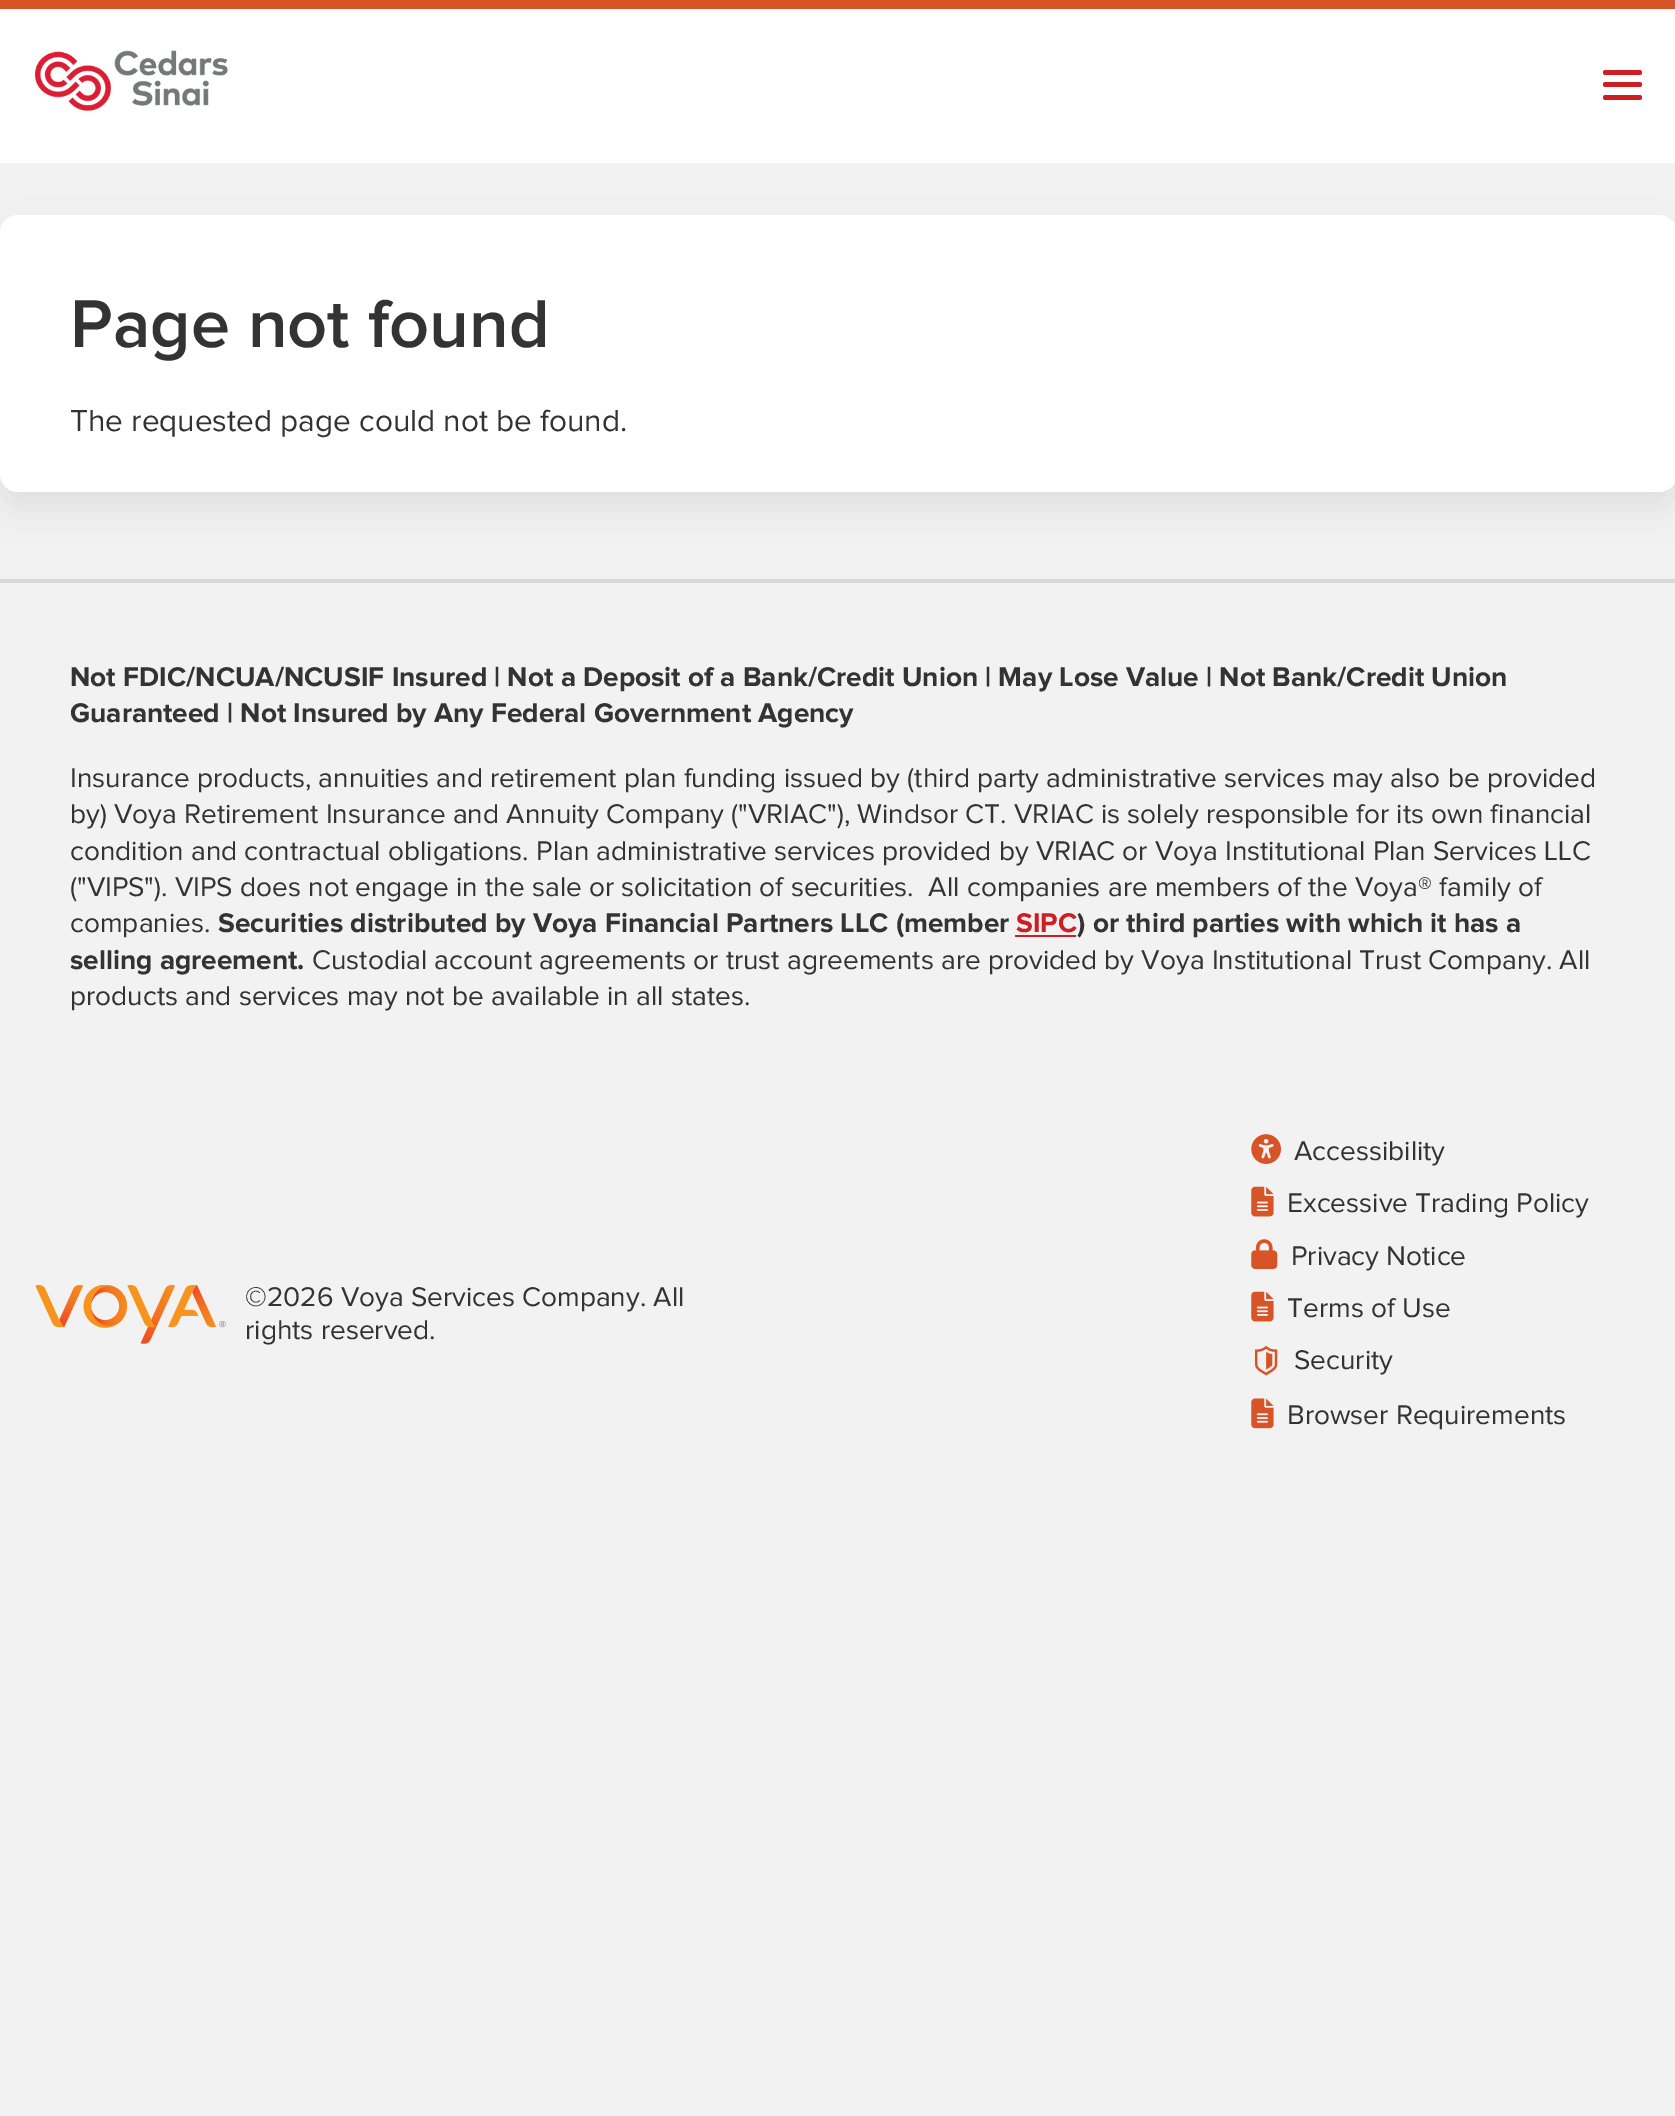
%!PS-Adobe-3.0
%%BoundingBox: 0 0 1675 2116
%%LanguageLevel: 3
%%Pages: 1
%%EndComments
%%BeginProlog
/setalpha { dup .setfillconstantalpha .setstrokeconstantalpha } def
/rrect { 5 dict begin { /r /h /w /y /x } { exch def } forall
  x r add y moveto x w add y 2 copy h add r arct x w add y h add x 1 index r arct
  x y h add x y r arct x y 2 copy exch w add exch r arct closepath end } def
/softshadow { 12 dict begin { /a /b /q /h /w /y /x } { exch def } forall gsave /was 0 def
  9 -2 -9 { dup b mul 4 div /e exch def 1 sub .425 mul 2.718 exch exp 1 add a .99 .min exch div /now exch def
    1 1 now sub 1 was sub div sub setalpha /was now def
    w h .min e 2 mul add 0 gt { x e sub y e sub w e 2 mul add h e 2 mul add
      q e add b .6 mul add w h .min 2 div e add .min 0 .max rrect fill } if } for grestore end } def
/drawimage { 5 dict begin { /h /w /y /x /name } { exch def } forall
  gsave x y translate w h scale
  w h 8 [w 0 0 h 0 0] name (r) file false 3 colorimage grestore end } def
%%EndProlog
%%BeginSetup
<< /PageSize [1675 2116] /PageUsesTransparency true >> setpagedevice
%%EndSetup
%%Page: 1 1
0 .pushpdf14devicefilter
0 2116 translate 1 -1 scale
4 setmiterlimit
0.949 setgray
0 0 1675 2116 rectfill
0.843 0.329 0.149 setrgbcolor
0 0 1675 9 rectfill
1 setgray
0 9 1675 154 rectfill
(images/1.raw) 35 50 193 61 drawimage
0.808 0.114 0.137 setrgbcolor
1603 82 39 5 2.5 rrect fill
1603 70 39 5 2.5 rrect fill
1603 95 39 5 2.5 rrect fill
0.2 setgray
2 235 1673 273 16 17.5 0.1 softshadow
1 setgray
0 215 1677 277 18 rrect fill
0.851 setgray
0 579 1675 4 rectfill
0.808 0.114 0.137 setrgbcolor
1015 935 61 2 rectfill
(images/2.raw) 35 1285 191 59 drawimage
(images/3.raw) 1251 1134 30 30 drawimage
(images/4.raw) 1251 1186 23 31 drawimage
(images/5.raw) 1251 1239 27 30 drawimage
(images/4.raw) 1251 1291 23 31 drawimage
(images/6.raw) 1254 1346 24 30 drawimage
(images/7.raw) 1251 1398 23 31 drawimage
/ProximaNova-SemiBold [70 0 0 -70 0 0] selectfont
0.2 setgray
70 347 moveto (Page not found) show
/ProximaNova-Regular [31.5 0 0 -31.5 0 0] selectfont
70 431 moveto (The requested page could not be found.) show
/ProximaNova-Bold [28 0 0 -28 0 0] selectfont
70 686 moveto (Not FDIC/NCUA/NCUSIF Insured | Not a Deposit of a Bank/Credit Union | May Lose Value | Not Bank/Credit Union) show
70 722 moveto (Guaranteed | Not Insured by Any Federal Government Agency) show
/ProximaNova-Regular [28 0 0 -28 0 0] selectfont
70 787 moveto (Insurance products, annuities and retirement plan funding issued by \(third party administrative services may also be provided) show
70 823 moveto (by\) Voya Retirement Insurance and Annuity Company \("VRIAC"\), Windsor CT. VRIAC is solely responsible for its own financial) show
70 860 moveto (condition and contractual obligations. Plan administrative services provided by VRIAC or Voya Institutional Plan Services LLC) show
70 896 moveto (\("VIPS"\). VIPS does not engage in the sale or solicitation of securities.  All companies are members of the Voya® family of) show
70 932 moveto (companies.) show
/ProximaNova-Bold [28 0 0 -28 0 0] selectfont
218 932 moveto (Securities distributed by Voya Financial Partners LLC \(member) show
0.808 0.114 0.137 setrgbcolor
1016 932 moveto (SIPC) show
0.2 setgray
1077 932 moveto (\) or third parties with which it has a) show
70 969 moveto (selling agreement.) show
/ProximaNova-Regular [28 0 0 -28 0 0] selectfont
312 969 moveto (Custodial account agreements or trust agreements are provided by Voya Institutional Trust Company. All) show
70 1005 moveto (products and services may not be available in all states.) show
245 1306 moveto (©2026 Voya Services Company. All) show
245 1339 moveto (rights reserved.) show
1294 1160 moveto (Accessibility) show
1287 1212 moveto (Excessive Trading Policy) show
1291 1265 moveto (Privacy Notice) show
1287 1317 moveto (Terms of Use) show
1294 1369 moveto (Security) show
1287 1424 moveto (Browser Requirements) show
.poppdf14devicefilter showpage
%%EOF
